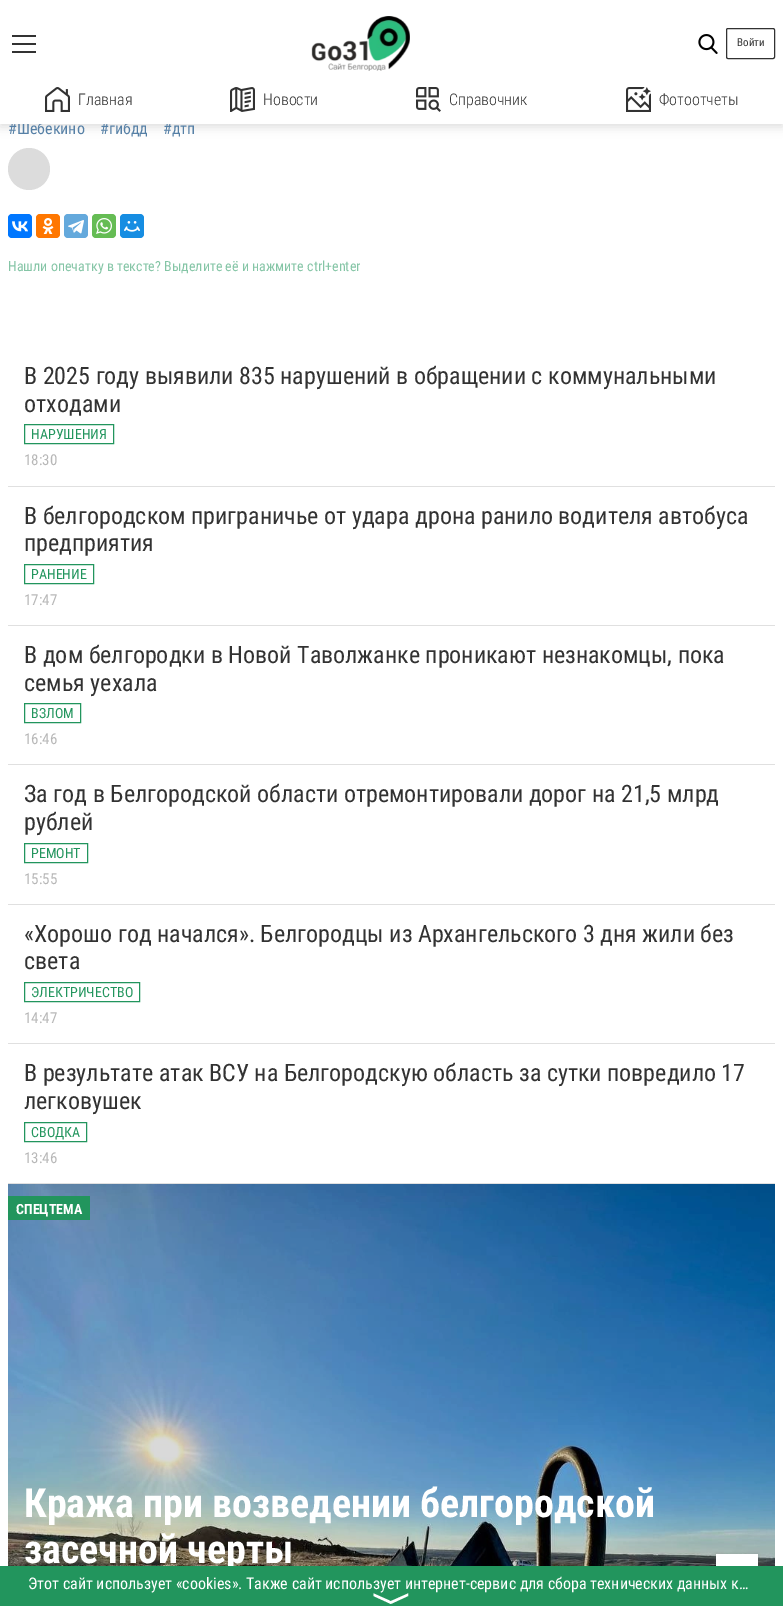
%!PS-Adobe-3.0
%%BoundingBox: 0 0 783 1606
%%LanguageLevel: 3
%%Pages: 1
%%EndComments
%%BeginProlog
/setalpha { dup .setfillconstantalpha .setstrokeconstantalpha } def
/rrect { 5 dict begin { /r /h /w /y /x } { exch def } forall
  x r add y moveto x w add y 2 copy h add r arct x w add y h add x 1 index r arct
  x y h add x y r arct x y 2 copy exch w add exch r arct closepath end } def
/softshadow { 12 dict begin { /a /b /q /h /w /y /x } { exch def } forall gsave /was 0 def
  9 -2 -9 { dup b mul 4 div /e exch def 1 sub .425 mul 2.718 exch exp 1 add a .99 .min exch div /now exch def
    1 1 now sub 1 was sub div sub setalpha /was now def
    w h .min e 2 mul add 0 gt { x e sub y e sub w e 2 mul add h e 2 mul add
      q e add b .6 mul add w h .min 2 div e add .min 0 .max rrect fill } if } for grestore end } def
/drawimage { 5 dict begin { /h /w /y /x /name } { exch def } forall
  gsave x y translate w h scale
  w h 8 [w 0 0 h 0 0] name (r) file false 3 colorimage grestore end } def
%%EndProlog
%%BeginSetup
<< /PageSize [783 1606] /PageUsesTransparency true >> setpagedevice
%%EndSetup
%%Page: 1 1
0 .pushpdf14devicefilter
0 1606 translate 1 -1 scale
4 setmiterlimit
1 setgray
0 0 783 1606 rectfill
0.306 setgray
0 3 783 124 0 5 0.2 softshadow
0.863 setgray
newpath 29 169 21 0 360 arc closepath fill
0 0.467 1 setrgbcolor
8 214 24 24 4 rrect fill
(images/7.raw) 12 221 16 11 drawimage
1 0.467 0 setrgbcolor
36 214 24 24 4 rrect fill
(images/8.raw) 42 218 12 16 drawimage
0.392 0.663 0.863 setrgbcolor
64 214 24 24 4 rrect fill
(images/9.raw) 68 220 16 14 drawimage
0.396 0.737 0.329 setrgbcolor
92 214 24 24 4 rrect fill
(images/10.raw) 96 218 16 16 drawimage
0.086 0.553 0.886 setrgbcolor
120 214 24 24 4 rrect fill
(images/11.raw) 124 221 16 11 drawimage
0.878 setgray
8 486 767 1 rectfill
0.133 0.584 0.365 setrgbcolor
24.5 424.5 89 19 rectstroke
0.878 setgray
8 625 767 1 rectfill
0.133 0.584 0.365 setrgbcolor
24.5 564.5 69 19 rectstroke
0.878 setgray
8 764 767 1 rectfill
0.133 0.584 0.365 setrgbcolor
24.5 703.5 56 19 rectstroke
0.878 setgray
8 904 767 1 rectfill
0.133 0.584 0.365 setrgbcolor
24.5 843.5 63 19 rectstroke
0.878 setgray
8 1043 767 1 rectfill
0.133 0.584 0.365 setrgbcolor
24.5 982.5 115 19 rectstroke
0.878 setgray
8 1183 767 1 rectfill
0.133 0.584 0.365 setrgbcolor
24.5 1122.5 62 19 rectstroke
(images/12.raw) 8 1184 767 382 drawimage
8 1196 82 24 rectfill
0.388 setgray
716 1554 42 42 0 1.5 0.25 softshadow
1 setgray
716 1554 42 12 rectfill
/RobotoCondensed-Regular [16 0 0 -16 0 0] selectfont
0.337 0.502 0.651 setrgbcolor
8 134 moveto (#Шебекино) show
100 134 moveto (#гибдд) show
163 134 moveto (#дтп) show
1 setgray
0 0 783 124 rectfill
(images/1.raw) 311 16 99 55 drawimage
0.196 setgray
12 51 24 2 rectfill
12 35 24 2 rectfill
12 43 24 2 rectfill
726.5 28.5 48 30 1.5 rrect stroke
/RobotoCondensed-Regular [11 0 0 -11 0 0] selectfont
737 46 moveto (Войти) show
(images/2.raw) 698 34 20 20 drawimage
(images/6.raw) 626 87 25 25 drawimage
/RobotoCondensed-Light [16 0 0 -16 0 0] selectfont
659 105 moveto (Фотоотчеты) show
(images/5.raw) 416 87 25 25 drawimage
449 105 moveto (Справочник) show
(images/4.raw) 230 87 25 25 drawimage
263 105 moveto (Новости) show
(images/3.raw) 45 87 25 25 drawimage
78 105 moveto (Главная) show
/RobotoCondensed-Regular [14 0 0 -14 0 0] selectfont
0.522 0.773 0.651 setrgbcolor
8 271 moveto (Нашли опечатку в тексте? Выделите её и нажмите ctrl+enter) show
/RobotoCondensed-Regular [24 0 0 -24 0 0] selectfont
0.196 setgray
24 384 moveto (В 2025 году выявили 835 нарушений в обращении с коммунальными) show
24 412 moveto (отходами) show
/RobotoCondensed-Regular [14 0 0 -14 0 0] selectfont
0.133 0.584 0.365 setrgbcolor
31 439 moveto (НАРУШЕНИЯ) show
/RobotoCondensed-Regular [15 0 0 -15 0 0] selectfont
0.718 setgray
24 465 moveto (18:30) show
/RobotoCondensed-Regular [24 0 0 -24 0 0] selectfont
0.196 setgray
24 524 moveto (В белгородском приграничье от удара дрона ранило водителя автобуса) show
24 551 moveto (предприятия) show
/RobotoCondensed-Regular [14 0 0 -14 0 0] selectfont
0.133 0.584 0.365 setrgbcolor
31 579 moveto (РАНЕНИЕ) show
/RobotoCondensed-Regular [15 0 0 -15 0 0] selectfont
0.718 setgray
24 605 moveto (17:47) show
/RobotoCondensed-Regular [24 0 0 -24 0 0] selectfont
0.196 setgray
24 663 moveto (В дом белгородки в Новой Таволжанке проникают незнакомцы, пока) show
24 691 moveto (семья уехала) show
/RobotoCondensed-Regular [14 0 0 -14 0 0] selectfont
0.133 0.584 0.365 setrgbcolor
31 718 moveto (ВЗЛОМ) show
/RobotoCondensed-Regular [15 0 0 -15 0 0] selectfont
0.718 setgray
24 744 moveto (16:46) show
/RobotoCondensed-Regular [24 0 0 -24 0 0] selectfont
0.196 setgray
24 802 moveto (За год в Белгородской области отремонтировали дорог на 21,5 млрд) show
24 830 moveto (рублей) show
/RobotoCondensed-Regular [14 0 0 -14 0 0] selectfont
0.133 0.584 0.365 setrgbcolor
31 858 moveto (РЕМОНТ) show
/RobotoCondensed-Regular [15 0 0 -15 0 0] selectfont
0.718 setgray
24 884 moveto (15:55) show
/RobotoCondensed-Regular [24 0 0 -24 0 0] selectfont
0.196 setgray
24 942 moveto («Хорошо год начался». Белгородцы из Архангельского 3 дня жили без) show
24 969 moveto (света) show
/RobotoCondensed-Regular [14 0 0 -14 0 0] selectfont
0.133 0.584 0.365 setrgbcolor
31 997 moveto (ЭЛЕКТРИЧЕСТВО) show
/RobotoCondensed-Regular [15 0 0 -15 0 0] selectfont
0.718 setgray
24 1023 moveto (14:47) show
/RobotoCondensed-Regular [24 0 0 -24 0 0] selectfont
0.196 setgray
24 1081 moveto (В результате атак ВСУ на Белгородскую область за сутки повредило 17) show
24 1109 moveto (легковушек) show
/RobotoCondensed-Regular [14 0 0 -14 0 0] selectfont
0.133 0.584 0.365 setrgbcolor
31 1137 moveto (СВОДКА) show
/RobotoCondensed-Regular [15 0 0 -15 0 0] selectfont
0.718 setgray
24 1163 moveto (13:46) show
/RobotoCondensed-Bold [14 0 0 -14 0 0] selectfont
1 setgray
16 1214 moveto (СПЕЦТЕМА) show
/RobotoCondensed-Bold [40 0 0 -40 0 0] selectfont
24 1517 moveto (Кража при возведении белгородской) show
24 1563 moveto (засечной черты) show
0.133 0.584 0.365 setrgbcolor
0 1566 783 40 rectfill
/RobotoCondensed-Regular [16 0 0 -16 0 0] selectfont
1 setgray
28 1589 moveto (Этот сайт использует «cookies». Также сайт использует интернет-сервис для сбора технических данных к…) show
/FreeSans-Regular [40 0 0 -40 0 0] selectfont
gsave 379 1592 translate 90 rotate 0 0 moveto (〉) show grestore
.poppdf14devicefilter showpage
%%EOF
